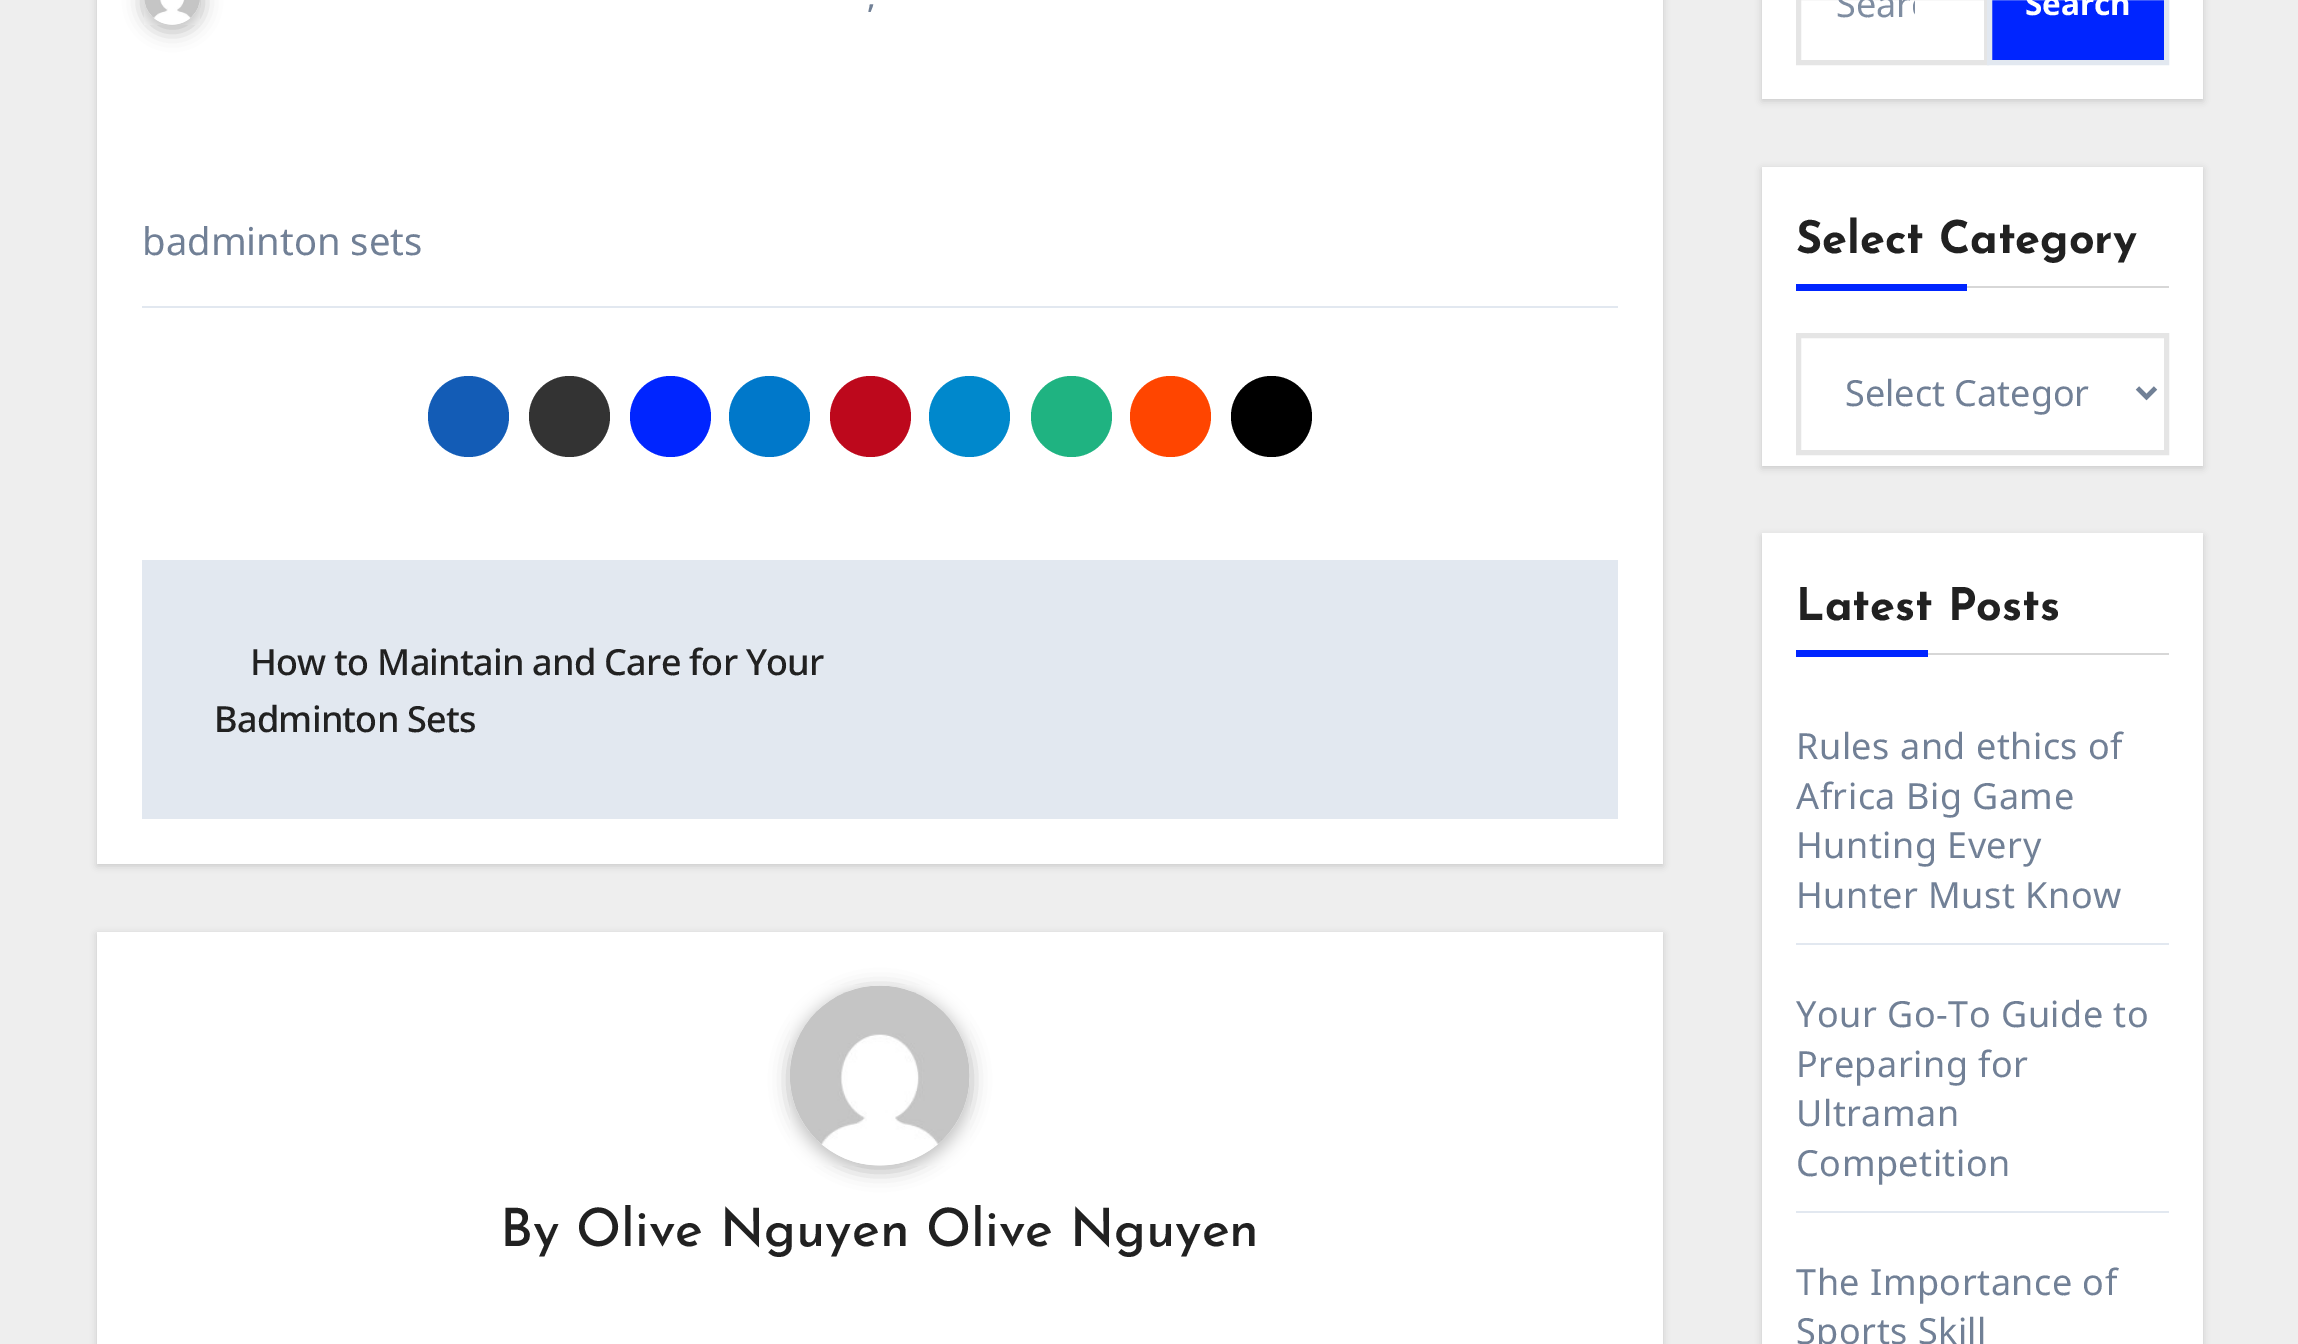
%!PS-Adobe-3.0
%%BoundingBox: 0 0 2298 1344
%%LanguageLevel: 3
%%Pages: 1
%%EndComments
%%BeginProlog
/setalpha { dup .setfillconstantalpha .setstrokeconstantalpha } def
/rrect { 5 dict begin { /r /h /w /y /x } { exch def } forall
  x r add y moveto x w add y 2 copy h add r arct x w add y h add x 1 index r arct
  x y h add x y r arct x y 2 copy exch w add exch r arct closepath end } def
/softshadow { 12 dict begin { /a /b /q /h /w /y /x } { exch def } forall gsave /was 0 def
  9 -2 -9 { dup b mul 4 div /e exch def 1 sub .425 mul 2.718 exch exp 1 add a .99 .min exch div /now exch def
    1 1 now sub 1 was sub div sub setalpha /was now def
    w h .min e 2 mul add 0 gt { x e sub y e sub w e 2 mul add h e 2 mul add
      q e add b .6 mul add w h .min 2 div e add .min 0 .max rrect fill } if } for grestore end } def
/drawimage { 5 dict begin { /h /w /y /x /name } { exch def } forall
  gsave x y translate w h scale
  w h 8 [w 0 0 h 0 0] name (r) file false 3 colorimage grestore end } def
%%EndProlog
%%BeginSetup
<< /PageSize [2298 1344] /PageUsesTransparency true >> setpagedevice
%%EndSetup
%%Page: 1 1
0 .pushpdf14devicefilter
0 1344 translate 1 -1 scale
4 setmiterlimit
0.933 setgray
0 0 2298 1344 rectfill
0 setgray
97 -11 1566 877 0 3.5 0.15 softshadow
1 setgray
97 0 1566 864 rectfill
0.129 setgray
142 -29 61 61 30.5 9 0.3 softshadow
(images/1.raw) 144 0 56 25 drawimage
0.886 0.91 0.941 setrgbcolor
142 306 1476 2 rectfill
0.075 0.361 0.714 setrgbcolor
newpath 468.5 416.5 40.5 0 360 arc closepath fill
0.2 setgray
newpath 569.5 416.5 40.5 0 360 arc closepath fill
0 0.145 1 setrgbcolor
newpath 670.5 416.5 40.5 0 360 arc closepath fill
0 0.471 0.792 setrgbcolor
newpath 769.5 416.5 40.5 0 360 arc closepath fill
0.741 0.031 0.11 setrgbcolor
newpath 870.5 416.5 40.5 0 360 arc closepath fill
0 0.533 0.8 setrgbcolor
newpath 969.5 416.5 40.5 0 360 arc closepath fill
0.122 0.702 0.506 setrgbcolor
newpath 1071.5 416.5 40.5 0 360 arc closepath fill
1 0.271 0 setrgbcolor
newpath 1170.5 416.5 40.5 0 360 arc closepath fill
0 setgray
newpath 1271.5 416.5 40.5 0 360 arc closepath fill
0.886 0.91 0.941 setrgbcolor
142 560 1476 259 rectfill
0 setgray
97 934 1566 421 0 3.5 0.15 softshadow
1 setgray
97 932 1566 412 rectfill
0.129 setgray
788 988 184 184 92 9 0.3 softshadow
(images/2.raw) 790 985 180 181 drawimage
0 setgray
1762 -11 441 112 0 3.5 0.15 softshadow
1 setgray
1762 0 441 99 rectfill
0.898 setgray
5 setlinewidth
1798.5 -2.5 188 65 rectstroke
0 0.145 1 setrgbcolor
newpath 1989.5 -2.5 moveto 2166.5 -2.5 lineto 2166.5 62.5 lineto 1989.5 62.5 lineto closepath gsave fill grestore
0.886 0.91 0.941 setrgbcolor
stroke
0 setgray
1762 169 441 299 0 3.5 0.15 softshadow
1 setgray
1762 167 441 299 rectfill
0.843 setgray
1967 286 202 2 rectfill
0 0.145 1 setrgbcolor
1796 284 171 7 rectfill
0.898 setgray
1798.5 335.5 368 117 rectstroke
0.443 0.502 0.588 setrgbcolor
4.5 setlinewidth
newpath 2137.5 388 moveto 2146.5 397 lineto 2155.5 388 lineto stroke
0 setgray
1762 536 441 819 0 3.5 0.15 softshadow
1 setgray
1762 533 441 811 rectfill
0.843 setgray
1928 653 241 2 rectfill
0 0.145 1 setrgbcolor
1796 650 132 7 rectfill
0.886 0.91 0.941 setrgbcolor
1796 943 373 2 rectfill
1796 1211 373 2 rectfill
/NotoSans-Medium [31.5 0 0 -31.5 0 0] selectfont
0.443 0.502 0.588 setrgbcolor
867 8 moveto (,) show
/NotoSans-Regular [38.25 0 0 -38.25 0 0] selectfont
142 255 moveto (badminton sets) show
/NotoSans-Medium [36 0 0 -36 0 0] selectfont
0.129 setgray
250 675 moveto -0.75 0 (How to Maintain and Care for Your) ashow
214 732 moveto -0.75 0 (Badminton Sets) ashow
/JosefinSans-Medium [52.75 0 0 -52.75 0 0] selectfont
500 1246 moveto (By Olive Nguyen Olive Nguyen) show
gsave
1836 0 79 29 rectclip
/NotoSans-Regular [36 0 0 -36 0 0] selectfont
0.498 0.553 0.631 setrgbcolor
1836 17 moveto (Searc) show
grestore
/NotoSans-Bold [31.5 0 0 -31.5 0 0] selectfont
1 setgray
2025 15 moveto (Search) show
/JosefinSans-Bold [45 0 0 -45 0 0] selectfont
0.129 setgray
1796 253 moveto (Select Category) show
/NotoSans-Regular [36 0 0 -36 0 0] selectfont
0.443 0.502 0.588 setrgbcolor
1845 406 moveto (Select Categor) show
/JosefinSans-Bold [45 0 0 -45 0 0] selectfont
0.129 setgray
1796 620 moveto (Latest Posts) show
/NotoSans-Regular [36 0 0 -36 0 0] selectfont
0.443 0.502 0.588 setrgbcolor
1796 759 moveto 0.5 0 (Rules and ethics of) ashow
1796 809 moveto 0.5 0 (Africa Big Game) ashow
1796 858 moveto 0.5 0 (Hunting Every) ashow
1796 908 moveto 0.5 0 (Hunter Must Know) ashow
1796 1027 moveto 0.5 0 (Your Go-To Guide to) ashow
1796 1077 moveto 0.5 0 (Preparing for) ashow
1796 1126 moveto 0.5 0 (Ultraman) ashow
1796 1176 moveto 0.5 0 (Competition) ashow
gsave
1796 1235 373 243 rectclip
1796 1295 moveto 0.5 0 (The Importance of) ashow
grestore
1796 1344 moveto 0.5 0 (Sports Skill) ashow
.poppdf14devicefilter showpage
%%EOF
